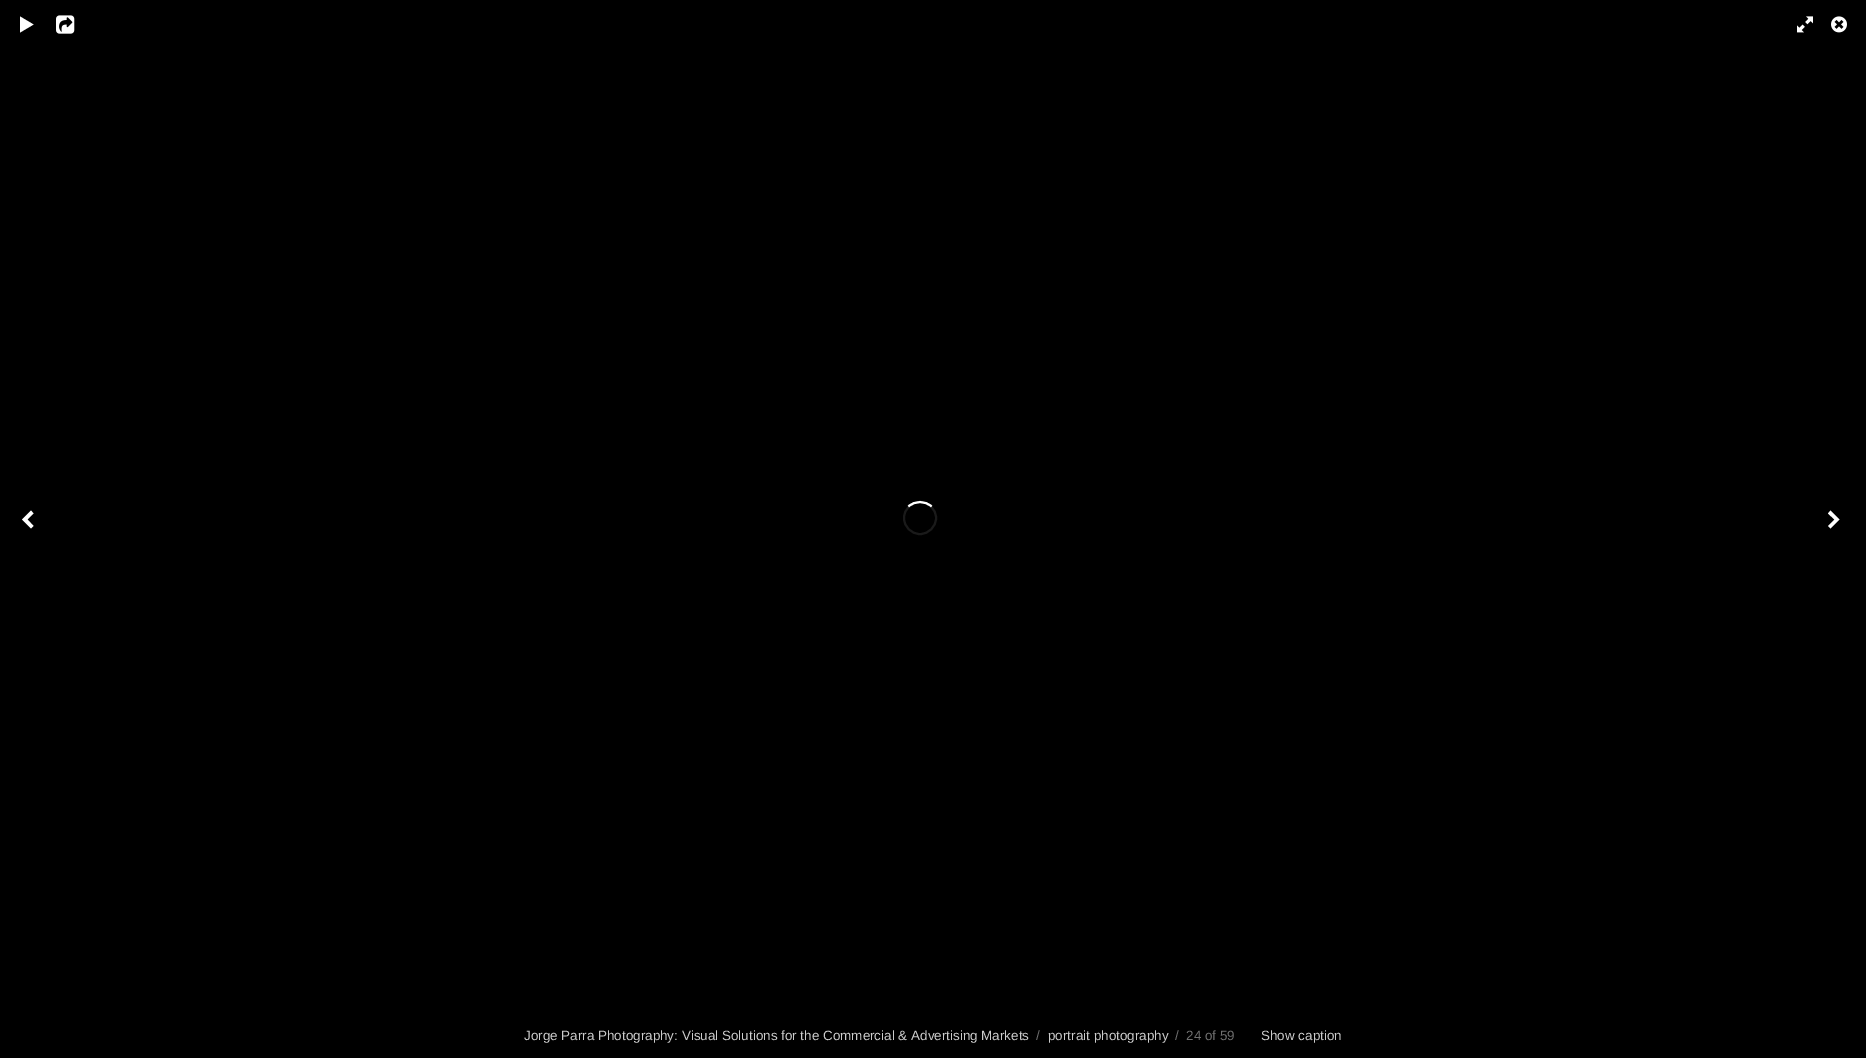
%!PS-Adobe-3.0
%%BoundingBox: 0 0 1866 1058
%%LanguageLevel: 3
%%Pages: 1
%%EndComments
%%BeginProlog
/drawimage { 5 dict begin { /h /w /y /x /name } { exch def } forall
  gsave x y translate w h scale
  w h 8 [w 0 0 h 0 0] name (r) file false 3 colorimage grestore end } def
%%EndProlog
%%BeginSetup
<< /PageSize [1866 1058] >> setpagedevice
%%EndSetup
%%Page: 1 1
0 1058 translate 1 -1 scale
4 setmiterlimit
0 setgray
0 0 1866 1058 rectfill
1 setgray
newpath 20 32.5 moveto 20 16.5 lineto 33.5 24.5 lineto closepath fill
(images/1.raw) 56 15 19 19 drawimage
(images/2.raw) 1797 16 16 17 drawimage
(images/3.raw) 1831 16 16 17 drawimage
newpath 22 519.5 moveto 31 510.5 lineto 33.5 513.5 lineto 27.5 519.5 lineto 33.5 526 lineto 31 528.5 lineto closepath fill
0.102 setgray
2 setlinewidth
newpath 920 518 16 0 360 arc closepath stroke
1 setgray
newpath 908.5 506.5 moveto 915 500.5 925 500.5 931.5 506.5 curveto stroke
newpath 1828 526 moveto 1834.5 519.5 lineto 1828 513.5 lineto 1830.5 510.5 lineto 1839.5 519.5 lineto 1830.5 528.5 lineto closepath fill
/LiberationSans-Regular [13.45 0 0 -13.45 0 0] selectfont
0.8 setgray
524 1040 moveto (Jorge Parra Photography: Visual Solutions for the Commercial & Advertising Markets) show
0.439 setgray
1036 1040 moveto (/) show
0.8 setgray
1048 1040 moveto (portrait photography) show
0.439 setgray
1175 1040 moveto (/  24 of 59) show
0.8 setgray
1261 1040 moveto (Show caption) show
showpage
%%EOF
